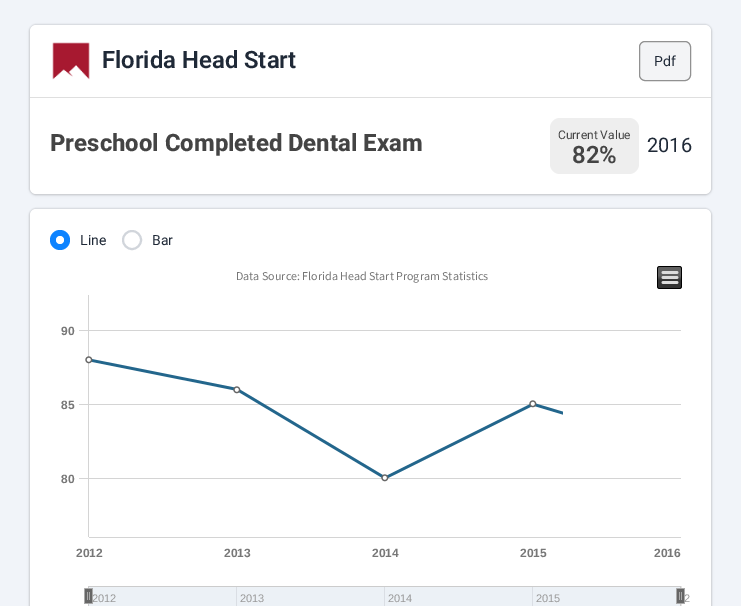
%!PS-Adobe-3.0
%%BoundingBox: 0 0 741 606
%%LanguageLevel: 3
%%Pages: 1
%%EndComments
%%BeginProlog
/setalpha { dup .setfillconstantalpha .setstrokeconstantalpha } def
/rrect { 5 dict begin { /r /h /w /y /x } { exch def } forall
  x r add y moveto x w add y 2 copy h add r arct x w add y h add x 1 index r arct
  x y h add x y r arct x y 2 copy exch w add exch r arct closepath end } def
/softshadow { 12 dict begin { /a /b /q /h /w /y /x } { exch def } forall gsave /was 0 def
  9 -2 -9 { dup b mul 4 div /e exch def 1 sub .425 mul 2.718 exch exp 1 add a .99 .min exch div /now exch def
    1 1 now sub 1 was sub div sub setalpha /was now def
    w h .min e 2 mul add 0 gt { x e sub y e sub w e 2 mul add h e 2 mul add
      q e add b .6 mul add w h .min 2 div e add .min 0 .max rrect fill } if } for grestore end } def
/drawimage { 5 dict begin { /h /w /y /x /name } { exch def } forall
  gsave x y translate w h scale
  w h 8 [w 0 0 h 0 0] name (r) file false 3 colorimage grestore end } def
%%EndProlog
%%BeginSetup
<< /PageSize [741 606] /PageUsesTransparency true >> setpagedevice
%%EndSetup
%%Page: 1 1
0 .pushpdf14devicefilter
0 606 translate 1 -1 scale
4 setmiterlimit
0.945 0.957 0.976 setrgbcolor
0 0 741 606 rectfill
0 setgray
30 26 681 169 6 1.5 0.12 softshadow
29 24 683 171 7 0.5 0.07 softshadow
1 setgray
30 25 681 169 6 rrect fill
0.875 setgray
30 97 681 1 rectfill
(images/1.raw) 52 42 38 38 drawimage
0.953 0.957 0.965 setrgbcolor
639.5 41.5 51 39 5.5 rrect gsave fill grestore
0.569 setgray
stroke
0.933 setgray
550 118 89 56 10 rrect fill
0 setgray
30 210 681 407 6 1.5 0.12 softshadow
29 208 683 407 7 0.5 0.07 softshadow
1 setgray
30 209 681 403 6 rrect fill
0.047 0.514 1 setrgbcolor
newpath 60 240 10 0 360 arc closepath fill
1 setgray
newpath 60 240 4 0 360 arc closepath fill
0.82 0.835 0.859 setrgbcolor
2 setlinewidth
newpath 132 240 9 0 360 arc closepath stroke
(images/2.raw) 79 266 606 340 drawimage
/Roboto-SemiBold [23.9 0 0 -23.9 0 0] selectfont
0.122 0.161 0.216 setrgbcolor
102 68 moveto (Florida Head Start) show
/Roboto-Regular [14 0 0 -14 0 0] selectfont
654 66 moveto (Pdf) show
/Roboto-ExtraBold [23.9 0 0 -23.9 0 0] selectfont
0.267 setgray
50 151 moveto (Preschool Completed Dental Exam) show
/Roboto-Regular [12 0 0 -12 0 0] selectfont
558 139 moveto (Current Value) show
/Roboto-SemiBold [23.9 0 0 -23.9 0 0] selectfont
572 163 moveto (82%) show
/Roboto-Regular [20 0 0 -20 0 0] selectfont
0.122 0.161 0.216 setrgbcolor
647 152 moveto (2016) show
/Roboto-Regular [14 0 0 -14 0 0] selectfont
80 245 moveto (Line) show
152 245 moveto (Bar) show
/SourceSansPro-Regular [12 0 0 -12 0 0] selectfont
0.467 setgray
236 280 moveto (Data Source: Florida Head Start Program Statistics) show
/LiberationSans-Bold [12 0 0 -12 0 0] selectfont
61 335 moveto (90) show
61 409 moveto (85) show
61 483 moveto (80) show
76 557 moveto (2012) show
224 557 moveto (2013) show
372 557 moveto (2014) show
520 557 moveto (2015) show
654 557 moveto (2016) show
/LiberationSans-Regular [11 0 0 -11 0 0] selectfont
0.6 setgray
92 602 moveto (2012) show
240 602 moveto (2013) show
388 602 moveto (2014) show
536 602 moveto (2015) show
684 602 moveto (2) show
.poppdf14devicefilter showpage
%%EOF
